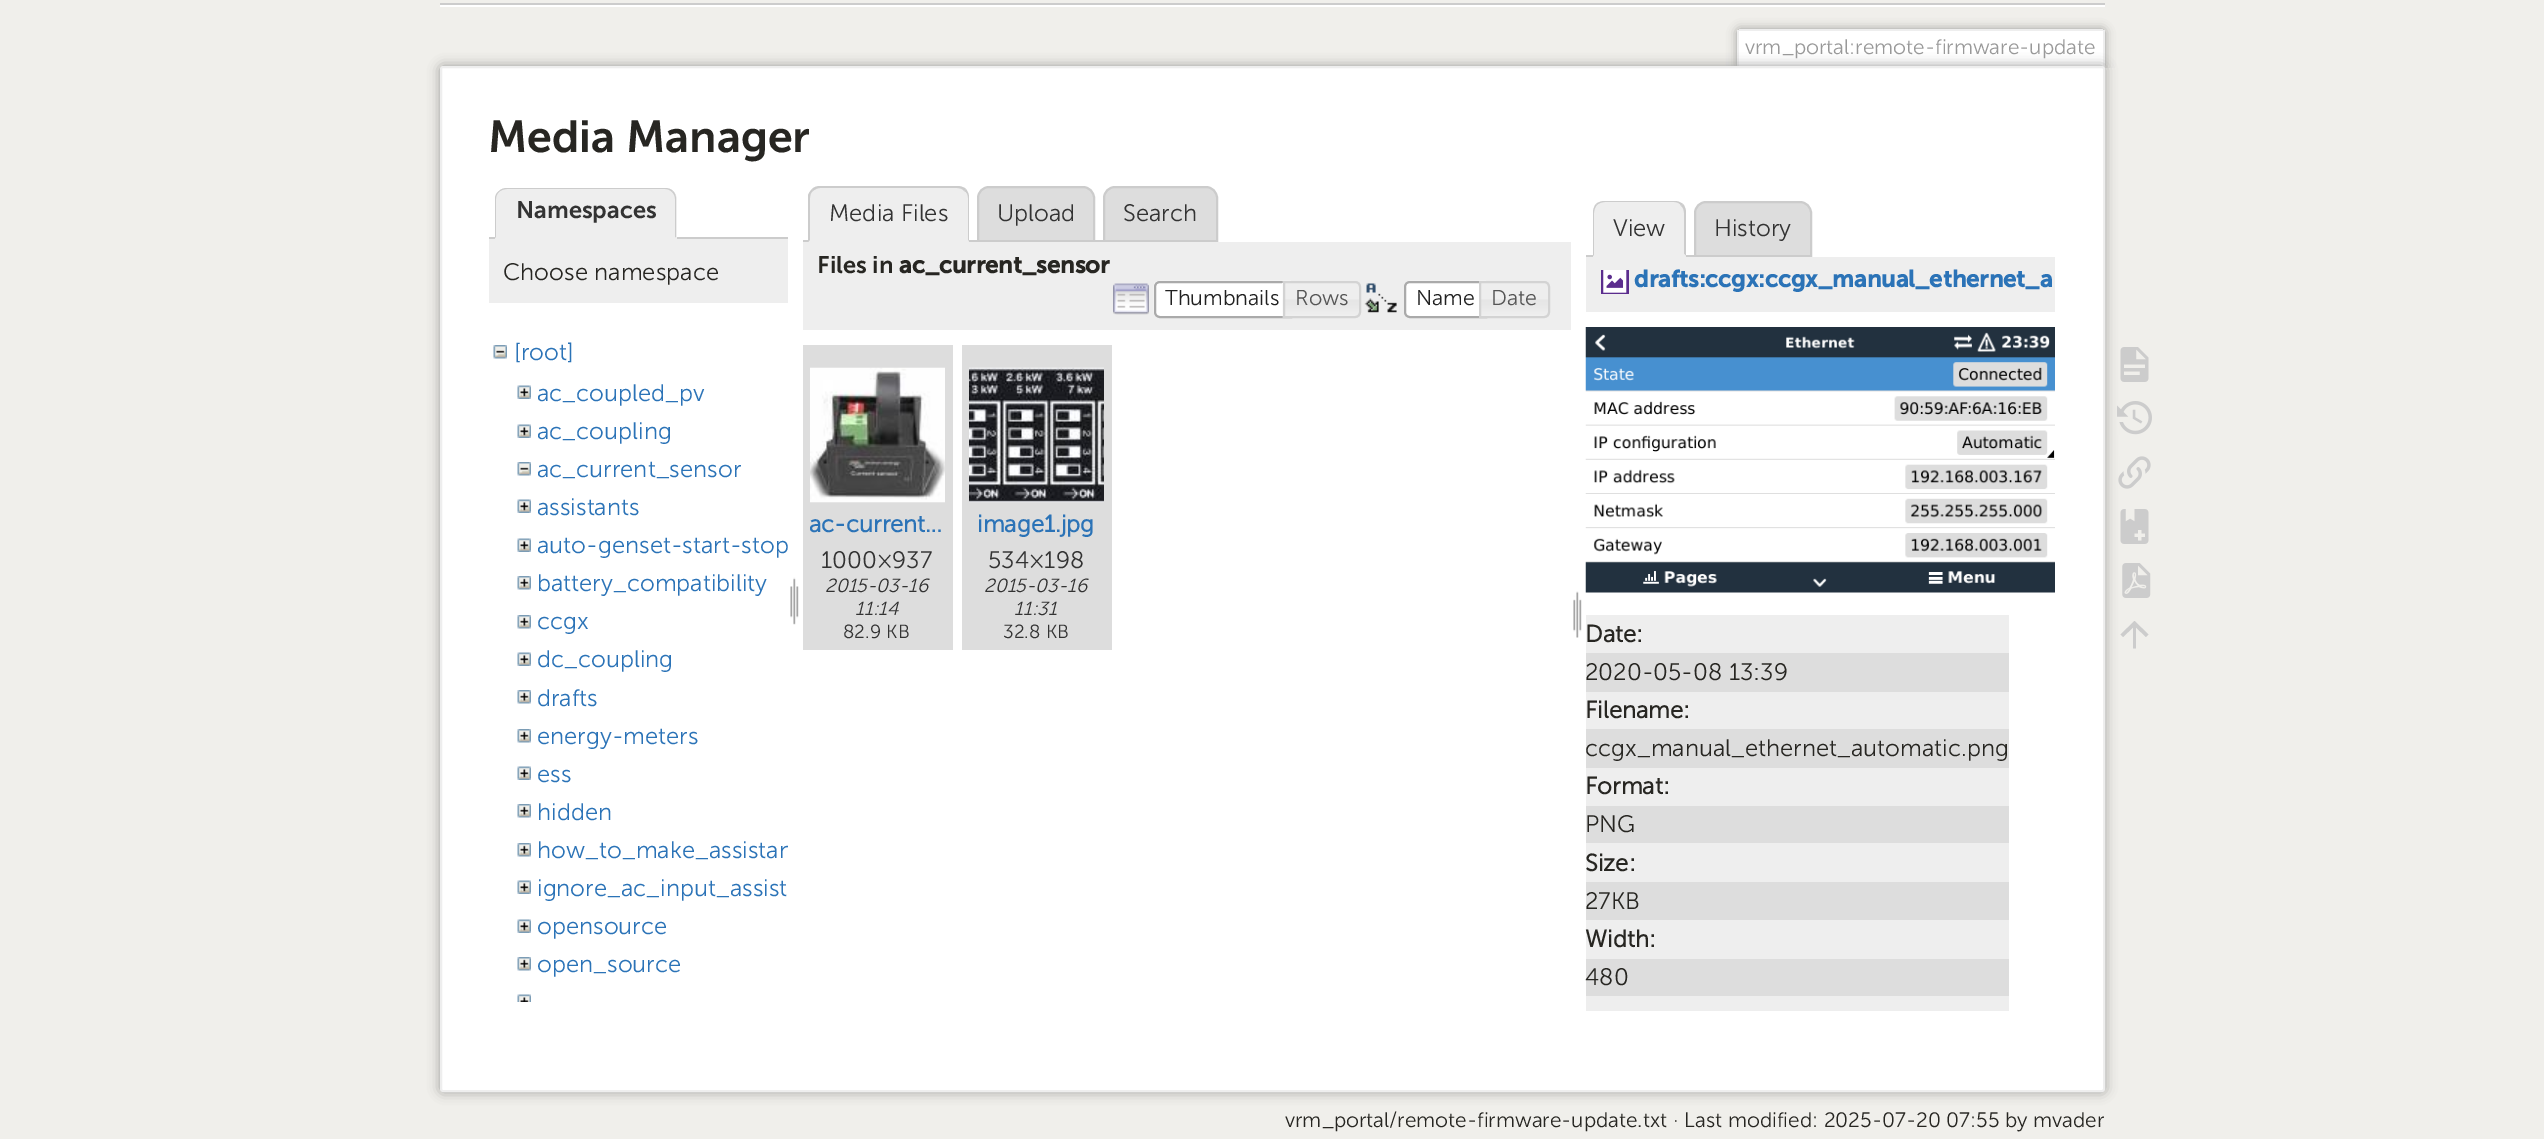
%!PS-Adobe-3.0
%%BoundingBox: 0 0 2544 1139
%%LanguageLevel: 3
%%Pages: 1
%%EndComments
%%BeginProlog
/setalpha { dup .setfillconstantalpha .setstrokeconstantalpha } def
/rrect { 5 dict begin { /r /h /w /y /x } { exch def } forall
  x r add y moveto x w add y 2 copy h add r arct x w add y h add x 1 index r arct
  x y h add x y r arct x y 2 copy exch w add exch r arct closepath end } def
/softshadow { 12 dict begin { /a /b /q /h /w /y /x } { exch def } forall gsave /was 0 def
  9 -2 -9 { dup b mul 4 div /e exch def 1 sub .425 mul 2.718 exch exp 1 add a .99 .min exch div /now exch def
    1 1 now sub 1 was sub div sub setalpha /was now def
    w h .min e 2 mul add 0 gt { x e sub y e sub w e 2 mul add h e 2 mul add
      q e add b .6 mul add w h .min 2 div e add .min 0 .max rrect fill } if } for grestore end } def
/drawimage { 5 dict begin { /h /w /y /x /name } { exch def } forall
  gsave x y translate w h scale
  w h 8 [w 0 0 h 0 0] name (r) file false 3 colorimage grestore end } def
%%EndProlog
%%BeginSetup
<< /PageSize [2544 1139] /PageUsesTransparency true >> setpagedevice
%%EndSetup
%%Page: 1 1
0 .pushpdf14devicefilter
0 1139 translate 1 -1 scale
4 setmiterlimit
0.941 0.937 0.922 setrgbcolor
0 0 2544 1139 rectfill
1 setgray
440 5 1665 2 rectfill
0.8 setgray
440 3 1665 2 rectfill
gsave
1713 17 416 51 rectclip
0.6 setgray
1737 29 368 39 3 5 1 softshadow
grestore
1 setgray
1739 31 364 36 rectfill
0.933 setgray
1739 29 364 2 rectfill
2103 30 2 38 rectfill
1737 30 2 38 rectfill
0.6 setgray
440 66 1665 1026 3 6 1 softshadow
1 setgray
441 67 1663 1024 2 rrect gsave fill grestore
0.933 setgray
2 setlinewidth
stroke
0.8 setgray
489 237 299 2 rectfill
0.933 setgray
newpath 507 188 moveto 665 188 lineto 671.5 188 677 193.5 677 200 curveto 677 239 lineto 495 239 lineto 495 200 lineto 495 193.5 500.5 188 507 188 curveto closepath fill
0.8 setgray
newpath 507 188 moveto 504 188 501 189 499 191 curveto 499 192 lineto 501 190 504 189 507 189 curveto 665 189 lineto 668 189 670 190 672 192 curveto 673 191 lineto 671 189 668 188 665 188 curveto closepath fill
newpath 676 238 moveto 676 199 lineto 676 196 675 193 673 191 curveto 672 192 lineto 674 194 675 196 675 199 curveto 675 237 lineto closepath fill
0.933 setgray
newpath 676 238 moveto 675 237 lineto 496 237 lineto 496 238 lineto closepath fill
0.8 setgray
newpath 495 199 moveto 495 238 lineto 496 237 lineto 496 199 lineto 496 196 497 194 499 192 curveto 499 191 lineto 496 193 495 196 495 199 curveto closepath fill
0.933 setgray
489 239 299 64 rectfill
(images/1.raw) 493 345 14 14 drawimage
(images/2.raw) 517 385 14 14 drawimage
(images/2.raw) 517 424 14 14 drawimage
(images/3.raw) 517 462 14 14 drawimage
(images/2.raw) 517 499 14 14 drawimage
(images/2.raw) 517 538 14 14 drawimage
(images/4.raw) 517 576 14 14 drawimage
(images/4.raw) 517 615 14 14 drawimage
(images/2.raw) 517 652 14 14 drawimage
(images/4.raw) 517 690 14 14 drawimage
(images/4.raw) 517 729 14 14 drawimage
(images/2.raw) 517 766 14 14 drawimage
(images/4.raw) 517 804 14 14 drawimage
(images/4.raw) 517 843 14 14 drawimage
(images/2.raw) 517 880 14 14 drawimage
(images/2.raw) 517 919 14 14 drawimage
(images/4.raw) 517 957 14 14 drawimage
(images/5.raw) 517 994 14 8 drawimage
(images/6.raw) 790 577 9 48 drawimage
0.867 setgray
newpath 989 187 moveto 1083 187 lineto 1089 187 1094 192 1094 198 curveto 1094 241 lineto 978 241 lineto 978 198 lineto 978 192 983 187 989 187 curveto closepath gsave fill grestore
0.8 setgray
stroke
803 240 300 2 rectfill
0.933 setgray
newpath 821 186 moveto 957 186 lineto 963.5 186 969 191.5 969 198 curveto 969 242 lineto 809 242 lineto 809 198 lineto 809 191.5 814.5 186 821 186 curveto closepath fill
0.8 setgray
newpath 820 186 moveto 817 186 814 187 812 189 curveto 813 191 lineto 815 189 818 188 820 188 curveto 957 188 lineto 960 188 963 189 964 191 curveto 966 189 lineto 964 187 960 186 957 186 curveto closepath fill
newpath 969 242 moveto 969 198 lineto 969 194 968 192 966 189 curveto 964 191 lineto 967 192 968 195 968 198 curveto 968 240 lineto closepath fill
0.933 setgray
newpath 969 242 moveto 968 240 lineto 810 240 lineto 808 242 lineto closepath fill
0.8 setgray
newpath 808 242 moveto 808 195 lineto 809 193 810 191 812 189 curveto 813 191 lineto 811 192 810 195 810 198 curveto 810 240 lineto closepath fill
0.867 setgray
newpath 1115 187 moveto 1206 187 lineto 1212 187 1217 192 1217 198 curveto 1217 241 lineto 1104 241 lineto 1104 198 lineto 1104 192 1109 187 1115 187 curveto closepath gsave fill grestore
0.8 setgray
stroke
0.933 setgray
803 242 768 88 rectfill
(images/7.raw) 1113 283 36 32 drawimage
(images/8.raw) 1153 280 138 38 drawimage
0.667 setgray
newpath 1160 282 moveto 1291 282 lineto 1291 317 lineto 1160 317 lineto 1157 317 1155 315 1155 312 curveto 1155 287 lineto 1155 284 1157 282 1160 282 curveto closepath stroke
(images/9.raw) 1282 281 78 37 drawimage
0.827 setgray
newpath 1284 282 moveto 1355 282 lineto 1358 282 1360 284 1360 287 curveto 1360 312 lineto 1360 315 1358 317 1355 317 curveto 1284 317 lineto closepath stroke
(images/10.raw) 1364 283 33 30 drawimage
1 setgray
newpath 1410 281 moveto 1487 281 lineto 1487 318 lineto 1410 318 lineto 1406.5 318 1404 315.5 1404 312 curveto 1404 287 lineto 1404 283.5 1406.5 281 1410 281 curveto closepath fill
(images/11.raw) 1404 280 82 5 drawimage
0.667 setgray
newpath 1410 282 moveto 1486 282 lineto 1486 317 lineto 1410 317 lineto 1407 317 1405 315 1405 312 curveto 1405 287 lineto 1405 284 1407 282 1410 282 curveto closepath stroke
(images/12.raw) 1481 281 68 37 drawimage
0.827 setgray
newpath 1480 282 moveto 1544 282 lineto 1547 282 1549 284 1549 287 curveto 1549 312 lineto 1549 315 1547 317 1544 317 curveto 1480 317 lineto closepath stroke
0.867 setgray
803 345 150 305 rectfill
(images/13.raw) 810 367 135 136 drawimage
962 345 150 305 rectfill
(images/14.raw) 969 367 135 136 drawimage
(images/15.raw) 1573 591 9 47 drawimage
0.8 setgray
1586 255 108 2 rectfill
0.933 setgray
newpath 1605 201 moveto 1674 201 lineto 1680.5 201 1686 206.5 1686 213 curveto 1686 257 lineto 1593 257 lineto 1593 213 lineto 1593 206.5 1598.5 201 1605 201 curveto closepath fill
0.8 setgray
newpath 1605 201 moveto 1602 201 1598 202 1596 204 curveto 1597 205 lineto 1599 203 1602 202 1605 202 curveto 1674 202 lineto 1677 202 1680 203 1681 206 curveto 1683 204 lineto 1680 202 1678 201 1674 201 curveto closepath fill
newpath 1686 256 moveto 1686 213 lineto 1686 210 1685 206 1683 204 curveto 1681 206 lineto 1683 207 1684 210 1684 213 curveto 1684 254 lineto closepath fill
0.933 setgray
newpath 1686 256 moveto 1594 256 lineto 1594 255 lineto 1684 255 lineto 1684 254 lineto closepath fill
0.8 setgray
newpath 1593 213 moveto 1593 256 lineto 1594 255 lineto 1594 213 lineto 1594 210 1595 207 1597 205 curveto 1596 204 lineto 1594 206 1593 210 1593 213 curveto closepath fill
0.867 setgray
newpath 1706 202 moveto 1800 202 lineto 1806 202 1811 207 1811 213 curveto 1811 256 lineto 1695 256 lineto 1695 213 lineto 1695 207 1700 202 1706 202 curveto closepath gsave fill grestore
0.8 setgray
stroke
0.933 setgray
1586 257 469 55 rectfill
(images/16.raw) 1601 270 28 24 drawimage
(images/17.raw) 1585 327 470 266 drawimage
1586 615 423 38 rectfill
0.867 setgray
1586 653 423 39 rectfill
0.933 setgray
1586 692 423 37 rectfill
0.867 setgray
1586 729 423 39 rectfill
0.933 setgray
1586 768 423 38 rectfill
0.867 setgray
1586 806 423 37 rectfill
0.933 setgray
1586 843 423 39 rectfill
0.867 setgray
1586 882 423 38 rectfill
0.933 setgray
1586 920 423 39 rectfill
0.867 setgray
1586 959 423 37 rectfill
0.933 setgray
1586 996 423 15 rectfill
(images/18.raw) 2120 347 29 35 drawimage
(images/19.raw) 2117 401 35 34 drawimage
(images/20.raw) 2118 456 33 33 drawimage
(images/21.raw) 2120 509 29 35 drawimage
(images/22.raw) 2122 563 29 35 drawimage
0.8 setgray
newpath 2136 648.5 moveto 2133 648.5 lineto 2133 627.5 lineto 2123 637 lineto 2120.5 634.5 lineto 2134.5 621 lineto 2148.5 634.5 lineto 2146 637 lineto 2136 627.5 lineto closepath fill
/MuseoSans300-Regular [20.8 0 0 -20.8 0 0] selectfont
0.6 setgray
1745 54 moveto (vrm_portal:remote-firmware-update) show
/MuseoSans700-Regular [44.75 0 0 -44.75 0 0] selectfont
0.153 0.149 0.133 setrgbcolor
488 152 moveto (Media Manager) show
/MuseoSans700-Regular [23.8 0 0 -23.8 0 0] selectfont
0.2 setgray
516 218 moveto (Namespaces) show
/MuseoSans300-Regular [23.8 0 0 -23.8 0 0] selectfont
0.153 0.149 0.133 setrgbcolor
503 280 moveto (Choose namespace) show
0.169 0.451 0.718 setrgbcolor
514 360 moveto ([root]) show
537 401 moveto (ac_coupled_pv) show
537 439 moveto (ac_coupling) show
537 477 moveto (ac_current_sensor) show
537 515 moveto (assistants) show
537 553 moveto (auto-genset-start-stop) show
537 591 moveto (battery_compatibility) show
537 629 moveto (ccgx) show
537 667 moveto (dc_coupling) show
537 706 moveto (drafts) show
537 744 moveto (energy-meters) show
537 782 moveto (ess) show
537 820 moveto (hidden) show
gsave
489 318 299 684 rectclip
537 858 moveto (how_to_make_assistan) show
grestore
537 896 moveto (ignore_ac_input_assist) show
537 934 moveto (opensource) show
537 972 moveto (open_source) show
0.2 setgray
829 221 moveto (Media Files) show
997 221 moveto (Upload) show
1123 221 moveto (Search) show
/MuseoSans700-Regular [23.8 0 0 -23.8 0 0] selectfont
0.153 0.149 0.133 setrgbcolor
817 273 moveto (Files in) show
/MuseoSans700-Bold [23.8 0 0 -23.8 0 0] selectfont
899 273 moveto (ac_current_sensor) show
/MuseoSans300-Regular [21.5 0 0 -21.5 0 0] selectfont
0.129 setgray
1165 305 moveto (Thumbnails) show
0.333 setgray
1295 305 moveto (Rows) show
0.129 setgray
1416 305 moveto (Name) show
0.333 setgray
1491 305 moveto (Date) show
/MuseoSans300-Bold [23.8 0 0 -23.8 0 0] selectfont
0.169 0.451 0.718 setrgbcolor
809 532 moveto (ac-current…) show
/MuseoSans300-Regular [23.8 0 0 -23.8 0 0] selectfont
0.2 setgray
821 568 moveto (1000×937) show
/MuseoSans300-Italic [19 0 0 -19 0 0] selectfont
825 592 moveto (2015-03-16) show
855 615 moveto (11:14) show
/MuseoSans300-Regular [19 0 0 -19 0 0] selectfont
843 638 moveto (82.9 KB) show
/MuseoSans300-Bold [23.8 0 0 -23.8 0 0] selectfont
0.169 0.451 0.718 setrgbcolor
977 532 moveto (image1.jpg) show
/MuseoSans300-Regular [23.8 0 0 -23.8 0 0] selectfont
0.2 setgray
988 568 moveto (534×198) show
/MuseoSans300-Italic [19 0 0 -19 0 0] selectfont
984 592 moveto (2015-03-16) show
1014 615 moveto (11:31) show
/MuseoSans300-Regular [19 0 0 -19 0 0] selectfont
1003 638 moveto (32.8 KB) show
/MuseoSans300-Regular [23.8 0 0 -23.8 0 0] selectfont
1613 236 moveto (View) show
1714 236 moveto (History) show
/MuseoSans700-Bold [23.8 0 0 -23.8 0 0] selectfont
0.169 0.451 0.718 setrgbcolor
1634 287 moveto (drafts:ccgx:ccgx_manual_ethernet_a) show
/MuseoSans300-Bold [23.8 0 0 -23.8 0 0] selectfont
0.153 0.149 0.133 setrgbcolor
1585 642 moveto (Date:) show
/MuseoSans300-Regular [23.8 0 0 -23.8 0 0] selectfont
1585 680 moveto (2020-05-08 13:39) show
/MuseoSans300-Bold [23.8 0 0 -23.8 0 0] selectfont
1585 718 moveto (Filename:) show
/MuseoSans300-Regular [23.8 0 0 -23.8 0 0] selectfont
1585 756 moveto (ccgx_manual_ethernet_automatic.png) show
/MuseoSans300-Bold [23.8 0 0 -23.8 0 0] selectfont
1585 794 moveto (Format:) show
/MuseoSans300-Regular [23.8 0 0 -23.8 0 0] selectfont
1585 832 moveto (PNG) show
/MuseoSans300-Bold [23.8 0 0 -23.8 0 0] selectfont
1585 871 moveto (Size:) show
/MuseoSans300-Regular [23.8 0 0 -23.8 0 0] selectfont
1585 909 moveto (27KB) show
/MuseoSans300-Bold [23.8 0 0 -23.8 0 0] selectfont
1585 947 moveto (Width:) show
/MuseoSans300-Regular [23.8 0 0 -23.8 0 0] selectfont
1585 985 moveto (480) show
/MuseoSans300-Regular [20.8 0 0 -20.8 0 0] selectfont
1285 1127 moveto (vrm_portal/remote-firmware-update.txt) show
1673 1127 moveto (· Last modified: 2025-07-20 07:55 by mvader) show
.poppdf14devicefilter showpage
%%EOF
